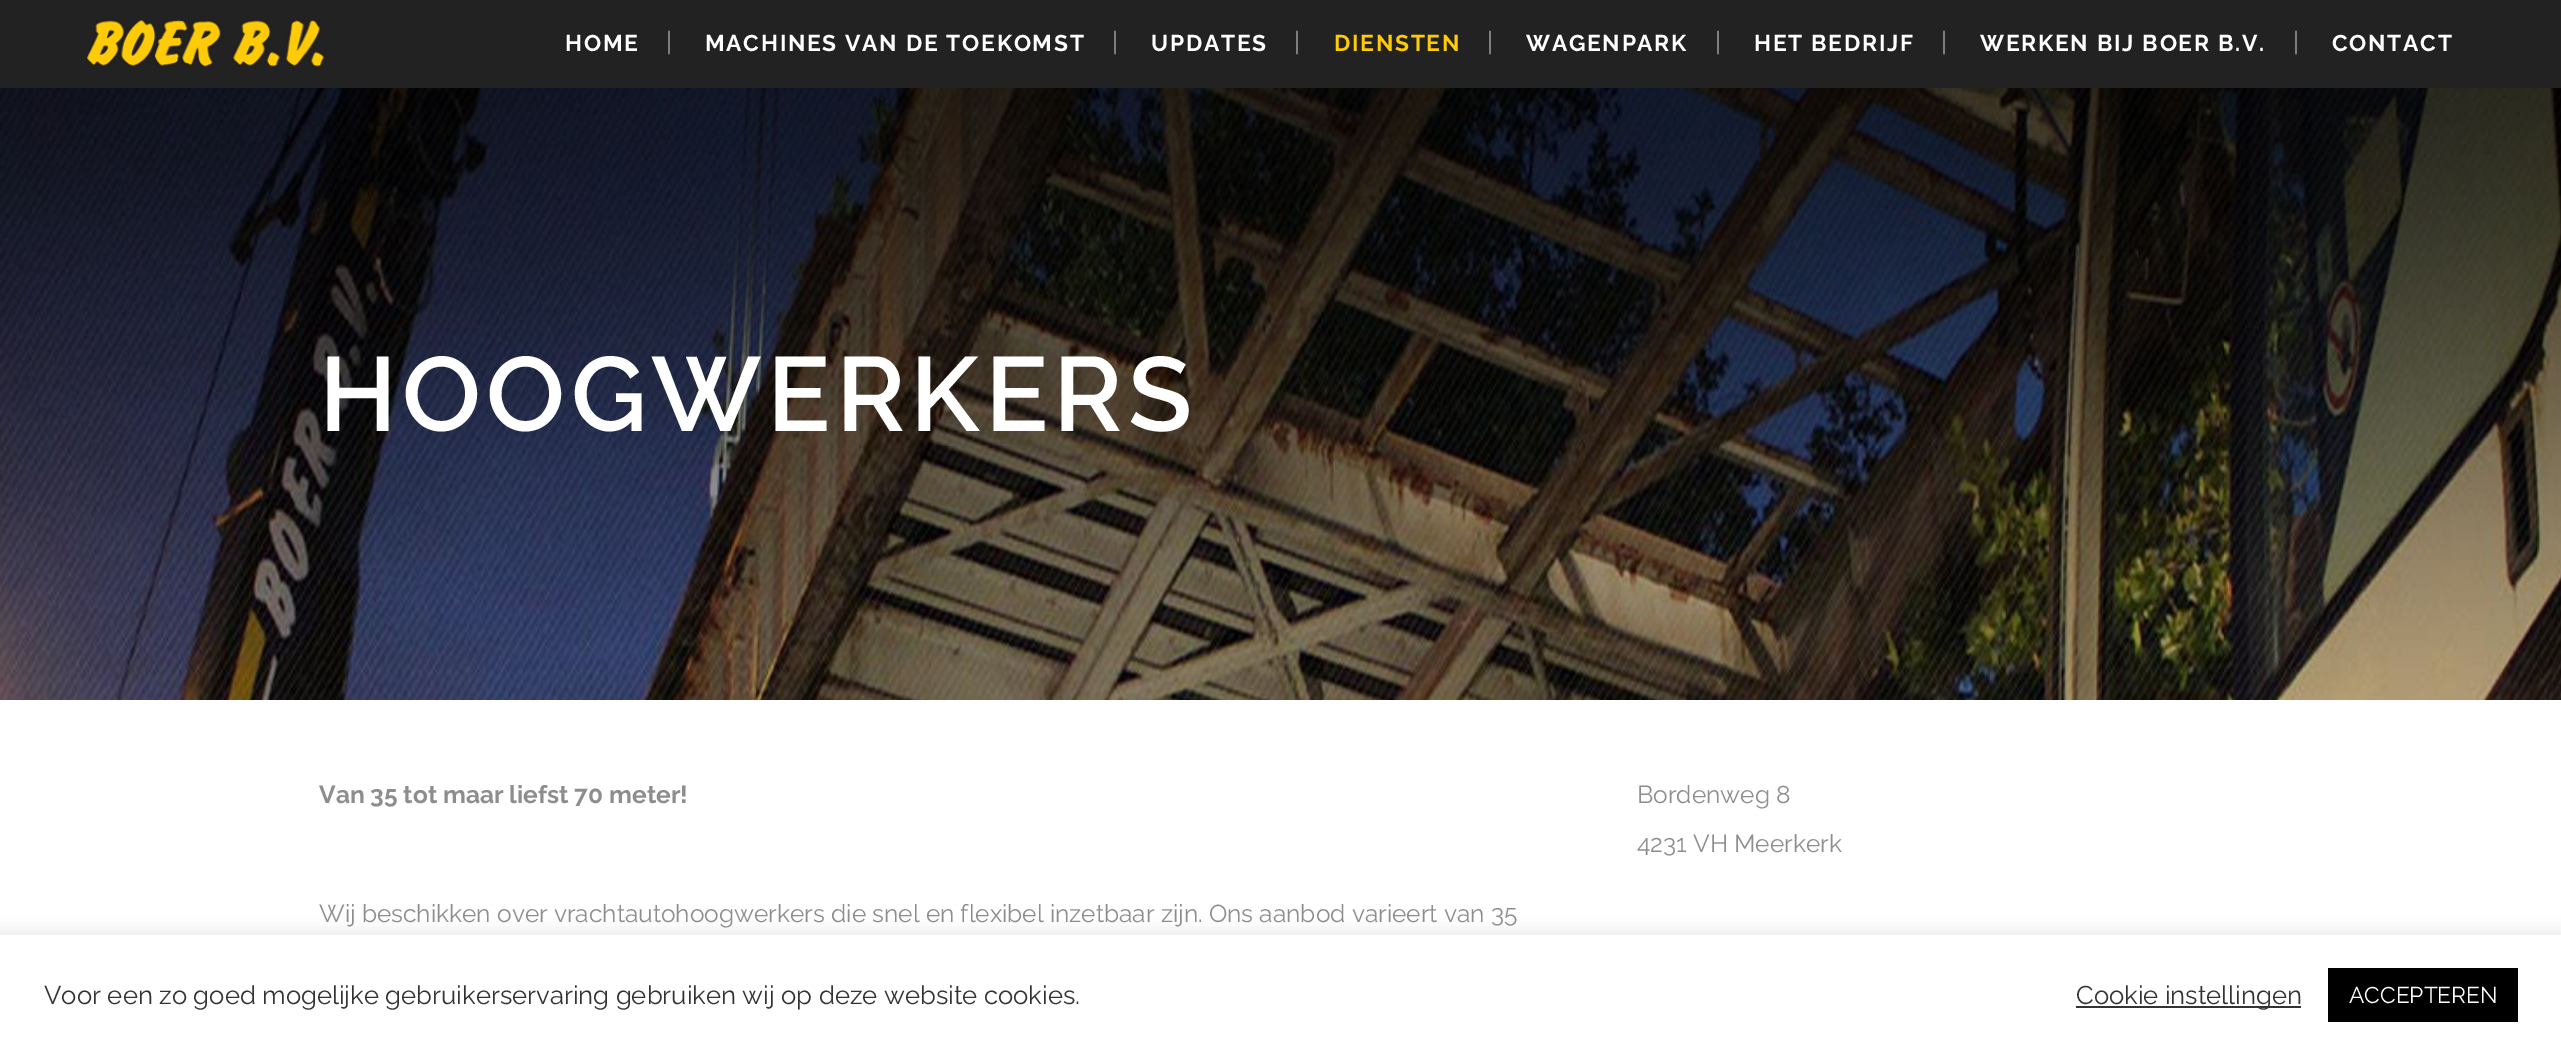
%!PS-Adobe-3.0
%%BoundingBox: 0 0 2561 1055
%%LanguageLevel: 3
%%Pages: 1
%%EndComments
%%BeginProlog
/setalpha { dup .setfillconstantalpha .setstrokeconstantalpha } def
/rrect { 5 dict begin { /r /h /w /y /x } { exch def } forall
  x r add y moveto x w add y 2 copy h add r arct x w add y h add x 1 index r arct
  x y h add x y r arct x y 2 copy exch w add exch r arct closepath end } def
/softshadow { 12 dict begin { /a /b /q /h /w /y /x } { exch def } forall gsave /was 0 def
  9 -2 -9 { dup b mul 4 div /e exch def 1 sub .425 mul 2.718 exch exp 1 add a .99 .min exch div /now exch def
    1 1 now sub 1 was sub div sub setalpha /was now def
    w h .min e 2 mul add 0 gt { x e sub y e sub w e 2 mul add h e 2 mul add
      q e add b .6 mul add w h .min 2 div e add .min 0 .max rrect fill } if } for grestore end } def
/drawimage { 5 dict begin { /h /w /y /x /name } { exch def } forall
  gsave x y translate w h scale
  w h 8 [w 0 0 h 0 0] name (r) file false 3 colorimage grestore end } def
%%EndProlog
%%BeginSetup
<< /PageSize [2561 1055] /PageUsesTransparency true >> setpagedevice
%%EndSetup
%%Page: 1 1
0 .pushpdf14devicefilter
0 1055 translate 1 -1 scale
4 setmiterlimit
1 setgray
0 0 2561 1055 rectfill
0.133 setgray
0 0 2561 88 rectfill
(images/1.raw) 87 20 238 47 drawimage
(images/2.raw) 0 88 2561 612 drawimage
0.675 0.671 0.671 setrgbcolor
0 933 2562 121 0 9 0.3 softshadow
1 setgray
0 935 2561 120 rectfill
0.2 setgray
2076 1006 225 2 rectfill
0 setgray
2328 968 190 54 rectfill
/Raleway-Bold [22.75 0 0 -22.75 0 0] selectfont
1 setgray
565 51 moveto 1.75 0 (HOME) ashow
/Raleway-Regular [26 0 0 -26 0 0] selectfont
0.62 setgray
666 51 moveto (|) show
/Raleway-Bold [22.75 0 0 -22.75 0 0] selectfont
1 setgray
705 51 moveto 1.75 0 (MACHINES VAN DE TOEKOMST) ashow
/Raleway-Regular [26 0 0 -26 0 0] selectfont
0.62 setgray
1112 51 moveto (|) show
/Raleway-Bold [22.75 0 0 -22.75 0 0] selectfont
1 setgray
1151 51 moveto 1.75 0 (UPDATES) ashow
/Raleway-Regular [26 0 0 -26 0 0] selectfont
0.62 setgray
1294 51 moveto (|) show
/Raleway-Bold [22.75 0 0 -22.75 0 0] selectfont
1 0.796 0.027 setrgbcolor
1334 51 moveto 1.75 0 (DIENSTEN) ashow
/Raleway-Regular [26 0 0 -26 0 0] selectfont
0.62 setgray
1487 51 moveto (|) show
/Raleway-Bold [22.75 0 0 -22.75 0 0] selectfont
1 setgray
1526 51 moveto 1.75 0 (WAGENPARK) ashow
/Raleway-Regular [26 0 0 -26 0 0] selectfont
0.62 setgray
1715 51 moveto (|) show
/Raleway-Bold [22.75 0 0 -22.75 0 0] selectfont
1 setgray
1754 51 moveto 1.75 0 (HET BEDRIJF) ashow
/Raleway-Regular [26 0 0 -26 0 0] selectfont
0.62 setgray
1941 51 moveto (|) show
/Raleway-Bold [22.75 0 0 -22.75 0 0] selectfont
1 setgray
1980 51 moveto 1.75 0 (WERKEN BIJ BOER B.V.) ashow
/Raleway-Regular [26 0 0 -26 0 0] selectfont
0.62 setgray
2293 51 moveto (|) show
/Raleway-Bold [22.75 0 0 -22.75 0 0] selectfont
1 setgray
2332 51 moveto 1.75 0 (CONTACT) ashow
/Raleway-SemiBold [105 0 0 -105 0 0] selectfont
319 431 moveto 5.25 0 (HOOGWERKERS) ashow
/Raleway-Bold [24.5 0 0 -24.5 0 0] selectfont
0.553 setgray
319 803 moveto (Van 35 tot maar liefst 70 meter!) show
/Raleway-Regular [24.5 0 0 -24.5 0 0] selectfont
319 922 moveto (Wij beschikken over vrachtautohoogwerkers die snel en flexibel inzetbaar zijn. Ons aanbod varieert van 35) show
1637 803 moveto (Bordenweg 8) show
1637 852 moveto (4231 VH Meerkerk) show
/Raleway-Regular [25.65 0 0 -25.65 0 0] selectfont
0.2 setgray
44 1004 moveto (Voor een zo goed mogelijke gebruikerservaring gebruiken wij op deze website cookies.) show
2076 1004 moveto (Cookie instellingen) show
/Raleway-Regular [22.75 0 0 -22.75 0 0] selectfont
1 setgray
2349 1003 moveto (ACCEPTEREN) show
.poppdf14devicefilter showpage
%%EOF
